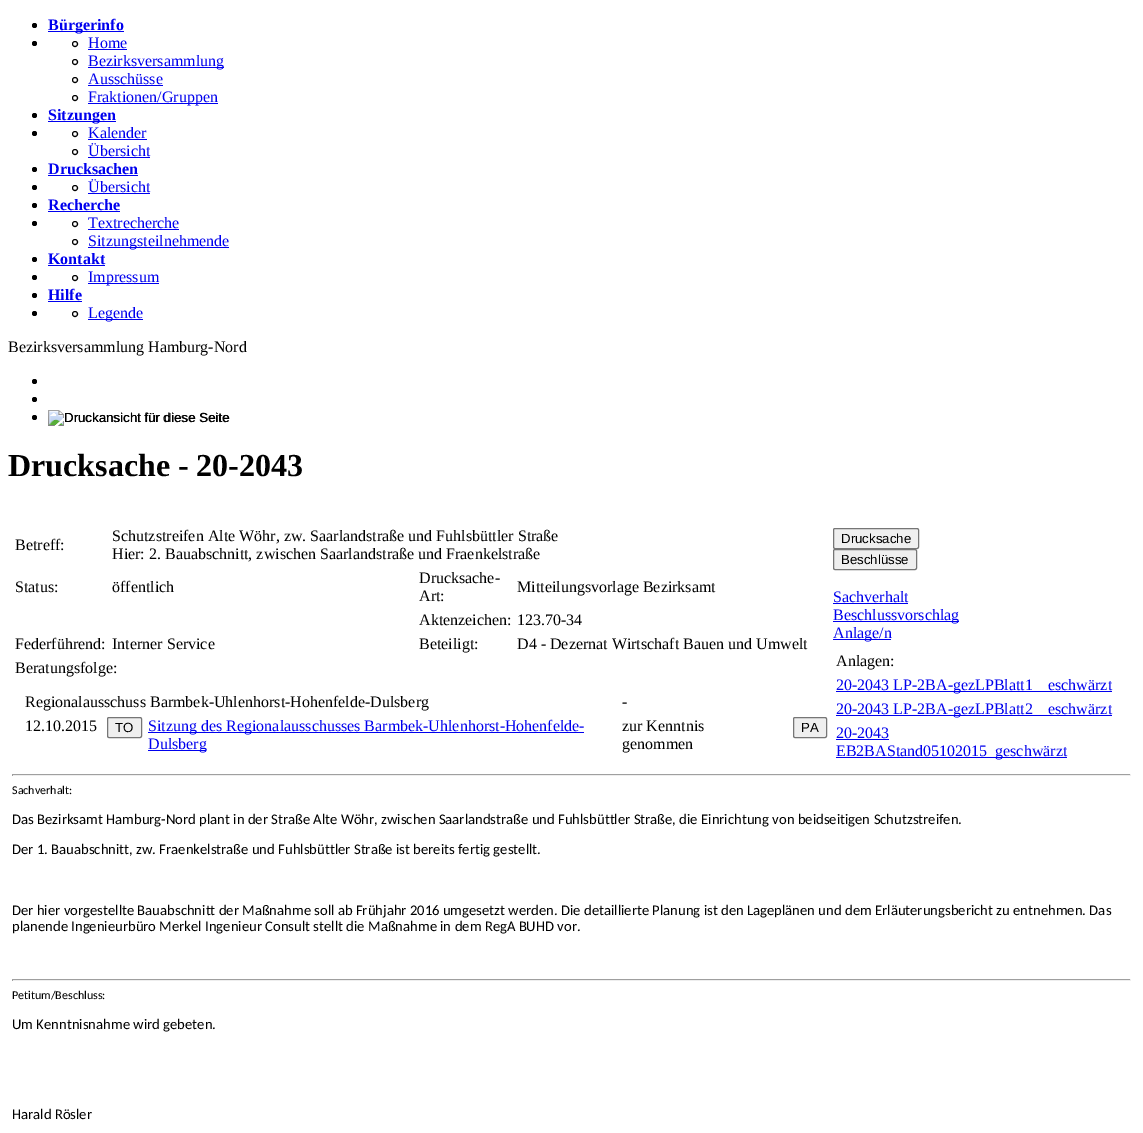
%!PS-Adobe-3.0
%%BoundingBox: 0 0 1143 1133
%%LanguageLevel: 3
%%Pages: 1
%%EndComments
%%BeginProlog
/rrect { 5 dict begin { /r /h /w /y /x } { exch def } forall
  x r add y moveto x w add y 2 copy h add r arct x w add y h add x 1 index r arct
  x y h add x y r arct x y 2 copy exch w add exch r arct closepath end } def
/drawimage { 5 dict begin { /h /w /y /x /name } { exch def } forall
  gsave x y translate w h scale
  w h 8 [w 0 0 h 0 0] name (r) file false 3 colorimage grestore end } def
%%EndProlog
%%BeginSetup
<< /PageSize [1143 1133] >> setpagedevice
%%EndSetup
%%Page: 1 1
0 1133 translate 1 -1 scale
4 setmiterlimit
1 setgray
0 0 1143 1133 rectfill
0 setgray
newpath 34.5 25.5 2.5 0 360 arc closepath fill
0 0 0.933 setrgbcolor
48 31 76 1 rectfill
0 setgray
newpath 34.5 43.5 2.5 0 360 arc closepath fill
newpath 75 44 2.5 0 360 arc closepath stroke
0 0 0.933 setrgbcolor
88 49 39 1 rectfill
0 setgray
newpath 75 62 2.5 0 360 arc closepath stroke
0 0 0.933 setrgbcolor
88 67 136 1 rectfill
0 setgray
newpath 75 80 2.5 0 360 arc closepath stroke
0 0 0.933 setrgbcolor
88 85 75 1 rectfill
0 setgray
newpath 75 98 2.5 0 360 arc closepath stroke
0 0 0.933 setrgbcolor
88 103 130 1 rectfill
0 setgray
newpath 34.5 115.5 2.5 0 360 arc closepath fill
0 0 0.933 setrgbcolor
48 121 68 1 rectfill
0 setgray
newpath 34.5 133.5 2.5 0 360 arc closepath fill
newpath 75 134 2.5 0 360 arc closepath stroke
0 0 0.933 setrgbcolor
88 139 59 1 rectfill
0 setgray
newpath 75 152 2.5 0 360 arc closepath stroke
0 0 0.933 setrgbcolor
88 157 62 1 rectfill
0 setgray
newpath 34.5 169.5 2.5 0 360 arc closepath fill
0 0 0.933 setrgbcolor
48 175 90 1 rectfill
0 setgray
newpath 34.5 187.5 2.5 0 360 arc closepath fill
newpath 75 188 2.5 0 360 arc closepath stroke
0 0 0.933 setrgbcolor
88 193 62 1 rectfill
0 setgray
newpath 34.5 205.5 2.5 0 360 arc closepath fill
0 0 0.933 setrgbcolor
48 211 72 1 rectfill
0 setgray
newpath 34.5 223.5 2.5 0 360 arc closepath fill
newpath 75 224 2.5 0 360 arc closepath stroke
0 0 0.933 setrgbcolor
88 229 91 1 rectfill
0 setgray
newpath 75 242 2.5 0 360 arc closepath stroke
0 0 0.933 setrgbcolor
88 247 141 1 rectfill
0 setgray
newpath 34.5 259.5 2.5 0 360 arc closepath fill
0 0 0.933 setrgbcolor
48 265 57 1 rectfill
0 setgray
newpath 34.5 277.5 2.5 0 360 arc closepath fill
newpath 75 278 2.5 0 360 arc closepath stroke
0 0 0.933 setrgbcolor
88 283 71 1 rectfill
0 setgray
newpath 34.5 295.5 2.5 0 360 arc closepath fill
0 0 0.933 setrgbcolor
48 301 34 1 rectfill
0 setgray
newpath 34.5 313.5 2.5 0 360 arc closepath fill
newpath 75 314 2.5 0 360 arc closepath stroke
0 0 0.933 setrgbcolor
88 319 55 1 rectfill
0 setgray
newpath 34.5 381.5 2.5 0 360 arc closepath fill
newpath 34.5 399.5 2.5 0 360 arc closepath fill
newpath 34.5 417.5 2.5 0 360 arc closepath fill
(images/1.raw) 48 410 182 16 drawimage
0.937 setgray
107.5 717.5 34 20 1.5 rrect gsave fill grestore
0.463 setgray
stroke
0 0 0.933 setrgbcolor
148 732 436 1 rectfill
148 750 58 1 rectfill
0.937 setgray
793.5 717.5 33 20 1.5 rrect gsave fill grestore
0.463 setgray
stroke
0.937 setgray
833.5 528.5 85 20 1.5 rrect gsave fill grestore
0.463 setgray
stroke
0.937 setgray
833.5 549.5 83 20 1.5 rrect gsave fill grestore
0.463 setgray
stroke
0 0 0.933 setrgbcolor
833 603 75 1 rectfill
833 621 126 1 rectfill
833 639 58 1 rectfill
836 691 276 1 rectfill
836 715 276 1 rectfill
836 739 53 1 rectfill
836 757 231 1 rectfill
0.624 setgray
12 774 1119 1 rectfill
0.933 setgray
1130 774 1 2 rectfill
12 775 1119 1 rectfill
0.624 setgray
12 774 1 2 rectfill
12 979 1119 1 rectfill
0.933 setgray
1130 979 1 2 rectfill
12 980 1119 1 rectfill
0.624 setgray
12 979 1 2 rectfill
/LiberationSerif-Bold [16 0 0 -16 0 0] selectfont
0 0 0.933 setrgbcolor
48 30 moveto (Bürgerinfo) show
/LiberationSerif-Regular [16 0 0 -16 0 0] selectfont
88 48 moveto (Home) show
88 66 moveto (Bezirksversammlung) show
88 84 moveto (Ausschüsse) show
88 102 moveto (Fraktionen/Gruppen) show
/LiberationSerif-Bold [16 0 0 -16 0 0] selectfont
48 120 moveto (Sitzungen) show
/LiberationSerif-Regular [16 0 0 -16 0 0] selectfont
88 138 moveto (Kalender) show
88 156 moveto (Übersicht) show
/LiberationSerif-Bold [16 0 0 -16 0 0] selectfont
48 174 moveto (Drucksachen) show
/LiberationSerif-Regular [16 0 0 -16 0 0] selectfont
88 192 moveto (Übersicht) show
/LiberationSerif-Bold [16 0 0 -16 0 0] selectfont
48 210 moveto (Recherche) show
/LiberationSerif-Regular [16 0 0 -16 0 0] selectfont
88 228 moveto (Textrecherche) show
88 246 moveto (Sitzungsteilnehmende) show
/LiberationSerif-Bold [16 0 0 -16 0 0] selectfont
48 264 moveto (Kontakt) show
/LiberationSerif-Regular [16 0 0 -16 0 0] selectfont
88 282 moveto (Impressum) show
/LiberationSerif-Bold [16 0 0 -16 0 0] selectfont
48 300 moveto (Hilfe) show
/LiberationSerif-Regular [16 0 0 -16 0 0] selectfont
88 318 moveto (Legende) show
0 setgray
8 352 moveto (Bezirksversammlung Hamburg-Nord) show
/LiberationSans-Regular [13.25 0 0 -13.25 0 0] selectfont
64 422 moveto (Druckansicht für diese Seite) show
/LiberationSerif-Bold [32 0 0 -32 0 0] selectfont
8 476 moveto (Drucksache - 20-2043) show
/LiberationSerif-Regular [16 0 0 -16 0 0] selectfont
15 550 moveto (Betreff:) show
112 541 moveto (Schutzstreifen Alte Wöhr, zw. Saarlandstraße und Fuhlsbüttler Straße) show
112 559 moveto (Hier: 2. Bauabschnitt, zwischen Saarlandstraße und Fraenkelstraße) show
15 592 moveto (Status:) show
112 592 moveto (öffentlich) show
419 583 moveto (Drucksache-) show
419 601 moveto (Art:) show
517 592 moveto (Mitteilungsvorlage Bezirksamt) show
419 625 moveto (Aktenzeichen:) show
517 625 moveto (123.70-34) show
15 649 moveto (Federführend:) show
112 649 moveto (Interner Service) show
419 649 moveto (Beteiligt:) show
517 649 moveto (D4 - Dezernat Wirtschaft Bauen und Umwelt) show
15 673 moveto (Beratungsfolge:) show
25 707 moveto (Regionalausschuss Barmbek-Uhlenhorst-Hohenfelde-Dulsberg) show
622 707 moveto (-) show
25 731 moveto (12.10.2015) show
/LiberationSans-Regular [13.25 0 0 -13.25 0 0] selectfont
115 732 moveto (TO) show
/LiberationSerif-Regular [16 0 0 -16 0 0] selectfont
0 0 0.933 setrgbcolor
148 731 moveto (Sitzung des Regionalausschusses Barmbek-Uhlenhorst-Hohenfelde-) show
148 749 moveto (Dulsberg) show
0 setgray
622 731 moveto (zur Kenntnis) show
622 749 moveto (genommen) show
/LiberationSans-Regular [13.25 0 0 -13.25 0 0] selectfont
801 732 moveto (PA) show
841 543 moveto (Drucksache) show
841 564 moveto (Beschlüsse) show
/LiberationSerif-Regular [16 0 0 -16 0 0] selectfont
0 0 0.933 setrgbcolor
833 602 moveto (Sachverhalt) show
833 620 moveto (Beschlussvorschlag) show
833 638 moveto (Anlage/n) show
0 setgray
836 666 moveto (Anlagen:) show
0 0 0.933 setrgbcolor
836 690 moveto (20-2043 LP-2BA-gezLPBlatt1) show
1048 690 moveto (eschwärzt) show
836 714 moveto (20-2043 LP-2BA-gezLPBlatt2) show
1048 714 moveto (eschwärzt) show
836 738 moveto (20-2043) show
836 756 moveto (EB2BAStand05102015_geschwärzt) show
/Carlito-Regular [12 0 0 -12 0 0] selectfont
0 setgray
12 794 moveto (Sachverhalt:) show
/Carlito-Regular [14.67 0 0 -14.67 0 0] selectfont
12 824 moveto (Das Bezirksamt Hamburg-Nord plant in der Straße Alte Wöhr, zwischen Saarlandstraße und Fuhlsbüttler Straße, die Einrichtung von beidseitigen Schutzstreifen.) show
12 854 moveto (Der 1. Bauabschnitt, zw. Fraenkelstraße und Fuhlsbüttler Straße ist bereits fertig gestellt.) show
12 915 moveto (Der hier vorgestellte Bauabschnitt der Maßnahme soll ab Frühjahr 2016 umgesetzt werden. Die detaillierte Planung ist den Lageplänen und dem Erläuterungsbericht zu entnehmen. Das) show
12 931 moveto (planende Ingenieurbüro Merkel Ingenieur Consult stellt die Maßnahme in dem RegA BUHD vor.) show
/Carlito-Regular [12 0 0 -12 0 0] selectfont
12 999 moveto (Petitum/Beschluss:) show
/Carlito-Regular [14.67 0 0 -14.67 0 0] selectfont
12 1029 moveto (Um Kenntnisnahme wird gebeten.) show
12 1119 moveto (Harald Rösler) show
showpage
%%EOF
